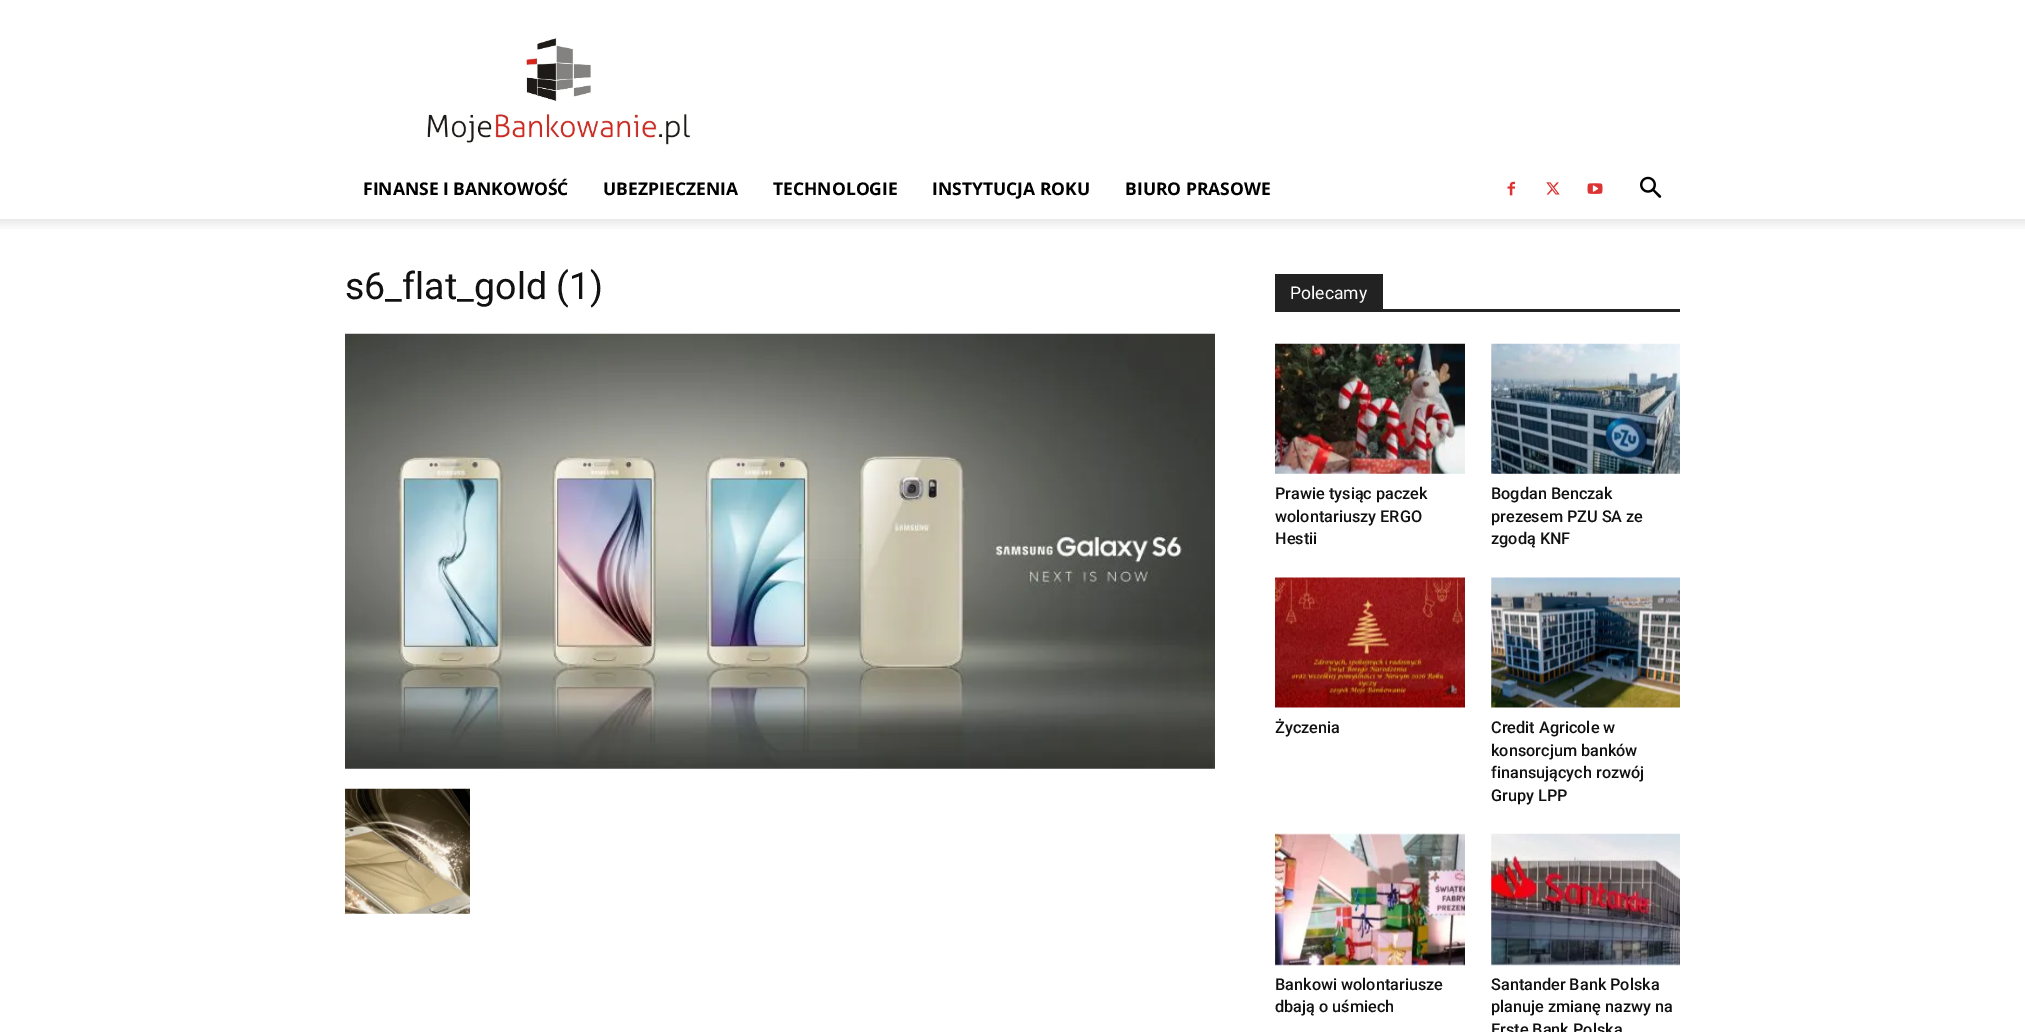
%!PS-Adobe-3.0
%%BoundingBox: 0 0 2025 1032
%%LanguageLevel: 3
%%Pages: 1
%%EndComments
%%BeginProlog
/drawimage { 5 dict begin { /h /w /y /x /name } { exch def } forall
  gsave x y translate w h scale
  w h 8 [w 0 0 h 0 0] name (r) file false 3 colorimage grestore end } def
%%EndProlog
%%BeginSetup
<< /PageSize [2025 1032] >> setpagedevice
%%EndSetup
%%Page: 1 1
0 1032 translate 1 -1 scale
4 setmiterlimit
1 setgray
0 0 2025 1032 rectfill
(images/1.raw) 427 38 263 107 drawimage
(images/2.raw) 1507 181 8 15 drawimage
(images/3.raw) 1546 182 14 13 drawimage
(images/4.raw) 1587 183 16 11 drawimage
(images/5.raw) 1640 176 22 22 drawimage
(images/6.raw) 0 219 2025 10 drawimage
(images/7.raw) 345 333 870 436 drawimage
(images/8.raw) 345 788 125 126 drawimage
0.133 setgray
1275 309 405 3 rectfill
1275 274 108 35 rectfill
(images/9.raw) 1275 343 190 131 drawimage
(images/10.raw) 1491 343 189 131 drawimage
(images/11.raw) 1275 577 190 131 drawimage
(images/12.raw) 1491 577 189 131 drawimage
(images/13.raw) 1275 833 190 133 drawimage
(images/14.raw) 1491 833 189 133 drawimage
/OpenSans-Bold [17.5 0 0 -17.5 0 0] selectfont
0 setgray
363 195 moveto (FINANSE I BANKOWOŚĆ) show
603 195 moveto (UBEZPIECZENIA) show
773 195 moveto (TECHNOLOGIE) show
932 195 moveto (INSTYTUCJA ROKU) show
1125 195 moveto (BIURO PRASOWE) show
/Roboto-Regular [37.5 0 0 -37.5 0 0] selectfont
0.067 setgray
345 299 moveto (s6_flat_gold \(1\)) show
/Roboto-Regular [17.5 0 0 -17.5 0 0] selectfont
1 setgray
1290 299 moveto (Polecamy) show
/Roboto-Medium [16.25 0 0 -16.25 0 0] selectfont
0.067 setgray
1275 499 moveto (Prawie tysiąc paczek) show
1275 522 moveto (wolontariuszy ERGO) show
1275 544 moveto (Hestii) show
1491 499 moveto (Bogdan Benczak) show
1491 522 moveto (prezesem PZU SA ze) show
1491 544 moveto (zgodą KNF) show
1275 733 moveto (Życzenia) show
1491 733 moveto (Credit Agricole w) show
1491 756 moveto (konsorcjum banków) show
1491 778 moveto (finansujących rozwój) show
1491 801 moveto (Grupy LPP) show
1275 990 moveto (Bankowi wolontariusze) show
1275 1012 moveto (dbają o uśmiech) show
1491 990 moveto (Santander Bank Polska) show
1491 1012 moveto (planuje zmianę nazwy na) show
1491 1035 moveto (Erste Bank Polska) show
showpage
%%EOF
